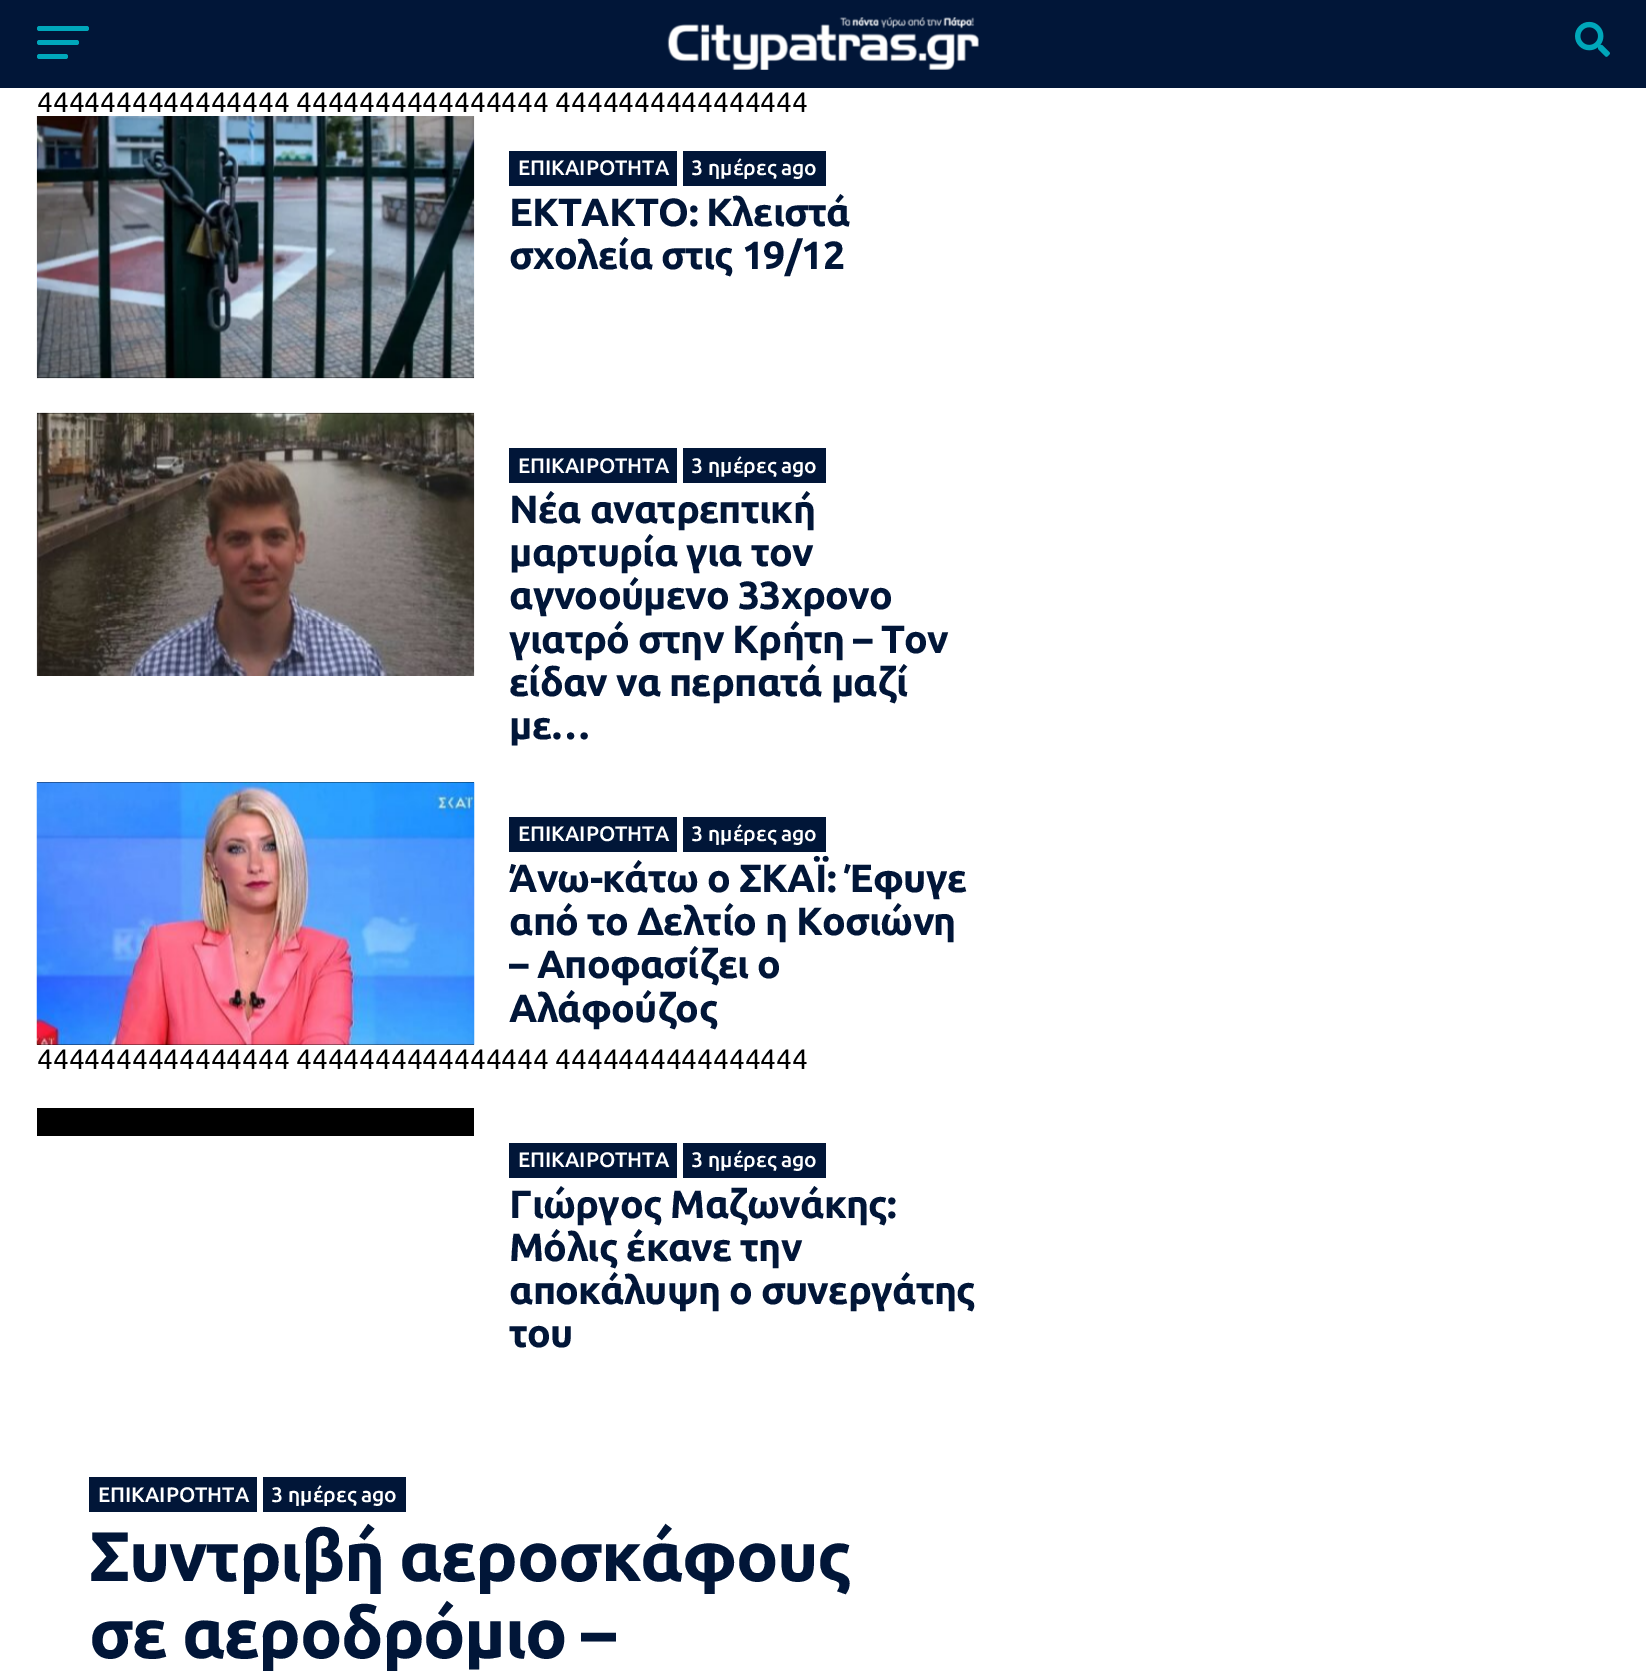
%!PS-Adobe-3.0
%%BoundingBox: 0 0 1646 1673
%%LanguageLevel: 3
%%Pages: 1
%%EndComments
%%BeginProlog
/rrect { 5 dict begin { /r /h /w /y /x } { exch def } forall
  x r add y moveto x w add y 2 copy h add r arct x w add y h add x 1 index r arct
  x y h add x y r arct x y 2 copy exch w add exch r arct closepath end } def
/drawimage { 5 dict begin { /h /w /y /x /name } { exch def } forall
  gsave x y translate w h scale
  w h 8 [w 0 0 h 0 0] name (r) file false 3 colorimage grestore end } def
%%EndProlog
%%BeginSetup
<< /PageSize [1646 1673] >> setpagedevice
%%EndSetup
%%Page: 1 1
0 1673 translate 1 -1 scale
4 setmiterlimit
0.004 0.086 0.22 setrgbcolor
0 0 1646 1673 rectfill
0 0.655 0.729 setrgbcolor
37 26 52 5 2.5 rrect fill
37 40 42 5 2.5 rrect fill
37 54 31 5 2.5 rrect fill
(images/1.raw) 667 17 312 53 drawimage
(images/2.raw) 1575 21 35 36 drawimage
1 setgray
0 88 1646 1585 rectfill
0 setgray
37 377 437 1 rectfill
(images/3.raw) 36 116 439 263 drawimage
0.004 0.086 0.22 setrgbcolor
509 151 168 35 rectfill
683 151 143 35 rectfill
0 setgray
37 413 437 1 rectfill
(images/4.raw) 36 412 439 264 drawimage
0.004 0.086 0.22 setrgbcolor
509 448 168 35 rectfill
683 448 143 35 rectfill
0 setgray
37 782 437 263 rectfill
(images/5.raw) 36 782 439 263 drawimage
0.004 0.086 0.22 setrgbcolor
509 817 168 35 rectfill
683 817 143 35 rectfill
0 setgray
37 1108 437 28 rectfill
0.004 0.086 0.22 setrgbcolor
509 1143 168 35 rectfill
683 1143 143 35 rectfill
89 1477 168 35 rectfill
263 1477 143 35 rectfill
/Ubuntu-Regular [28 0 0 -28 0 0] selectfont
0 setgray
37 112 moveto (4444444444444444 4444444444444444 4444444444444444) show
/Ubuntu-Medium [21 0 0 -21 0 0] selectfont
1 setgray
518 175 moveto (ΕΠΙΚΑΙΡΟΤΗΤΑ) show
691 175 moveto (3 ημέρες ago) show
/Ubuntu-Bold [39.25 0 0 -39.25 0 0] selectfont
0.004 0.086 0.22 setrgbcolor
509 226 moveto -0.75 0 (ΕΚΤΑΚΤΟ: Κλειστά) ashow
509 269 moveto -0.75 0 (σχολεία στις 19/12) ashow
/Ubuntu-Medium [21 0 0 -21 0 0] selectfont
1 setgray
518 473 moveto (ΕΠΙΚΑΙΡΟΤΗΤΑ) show
691 473 moveto (3 ημέρες ago) show
/Ubuntu-Bold [39.25 0 0 -39.25 0 0] selectfont
0.004 0.086 0.22 setrgbcolor
509 523 moveto -0.75 0 (Νέα ανατρεπτική) ashow
509 566 moveto -0.75 0 (μαρτυρία για τον) ashow
509 609 moveto -0.75 0 (αγνοούμενο 33χρονο) ashow
509 653 moveto -0.75 0 (γιατρό στην Κρήτη – Τον) ashow
509 696 moveto -0.75 0 (είδαν να περπατά μαζί) ashow
509 739 moveto -0.75 0 (με…) ashow
/Ubuntu-Medium [21 0 0 -21 0 0] selectfont
1 setgray
518 841 moveto (ΕΠΙΚΑΙΡΟΤΗΤΑ) show
691 841 moveto (3 ημέρες ago) show
/Ubuntu-Bold [39.25 0 0 -39.25 0 0] selectfont
0.004 0.086 0.22 setrgbcolor
509 892 moveto -0.75 0 (Άνω-κάτω ο ΣΚΑΪ: Έφυγε) ashow
509 935 moveto -0.75 0 (από το Δελτίο η Κοσιώνη) ashow
509 978 moveto -0.75 0 (– Αποφασίζει ο) ashow
509 1022 moveto -0.75 0 (Αλάφούζος) ashow
/Ubuntu-Regular [28 0 0 -28 0 0] selectfont
0 setgray
37 1069 moveto (4444444444444444 4444444444444444 4444444444444444) show
/Ubuntu-Medium [21 0 0 -21 0 0] selectfont
1 setgray
518 1167 moveto (ΕΠΙΚΑΙΡΟΤΗΤΑ) show
691 1167 moveto (3 ημέρες ago) show
/Ubuntu-Bold [39.25 0 0 -39.25 0 0] selectfont
0.004 0.086 0.22 setrgbcolor
509 1218 moveto -0.75 0 (Γιώργος Μαζωνάκης:) ashow
509 1261 moveto -0.75 0 (Μόλις έκανε την) ashow
509 1304 moveto -0.75 0 (αποκάλυψη ο συνεργάτης) ashow
509 1347 moveto -0.75 0 (του) ashow
/Ubuntu-Medium [21 0 0 -21 0 0] selectfont
1 setgray
98 1502 moveto (ΕΠΙΚΑΙΡΟΤΗΤΑ) show
271 1502 moveto (3 ημέρες ago) show
/Ubuntu-Bold [70 0 0 -70 0 0] selectfont
0.004 0.086 0.22 setrgbcolor
89 1581 moveto -1.4 0 (Συντριβή αεροσκάφους) ashow
89 1658 moveto -1.4 0 (σε αεροδρόμιο –) ashow
showpage
%%EOF
